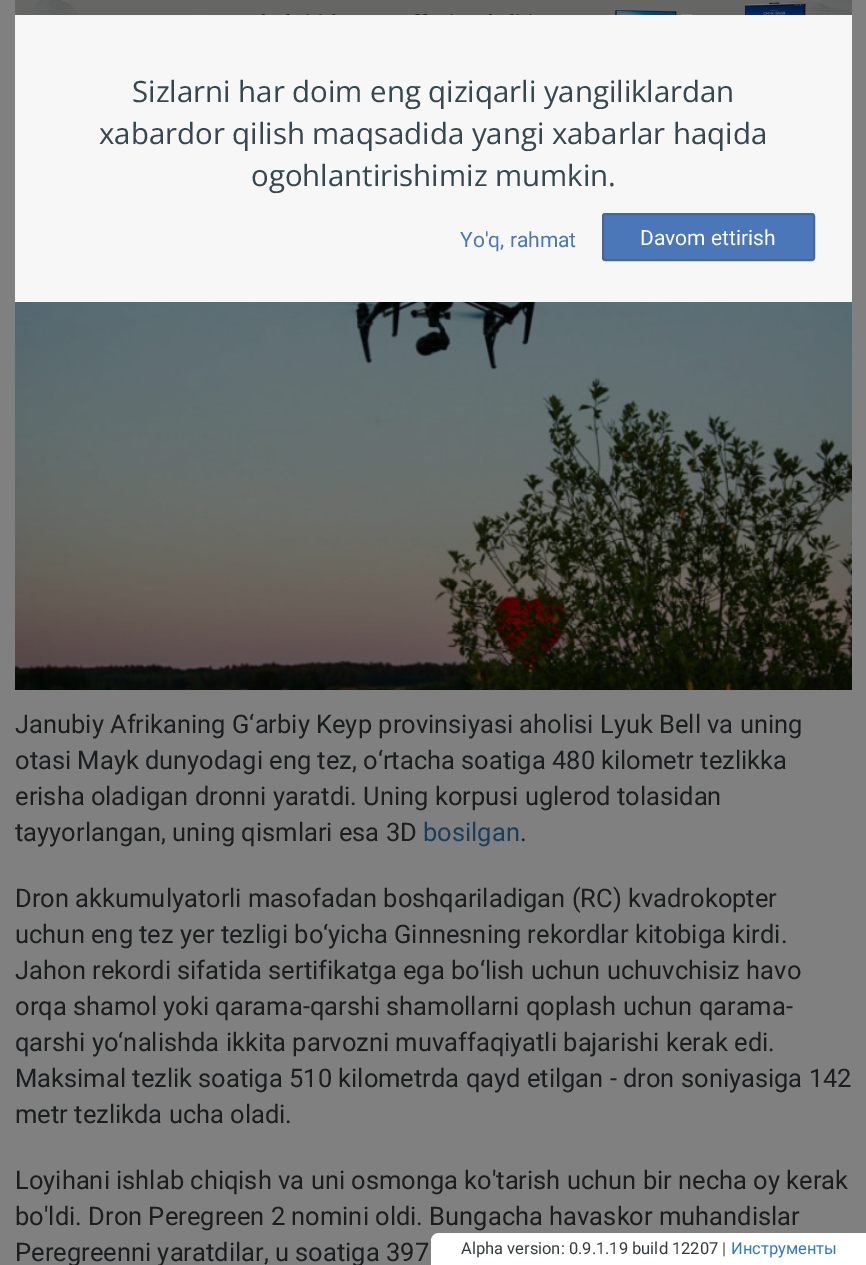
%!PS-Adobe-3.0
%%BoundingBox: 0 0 866 1265
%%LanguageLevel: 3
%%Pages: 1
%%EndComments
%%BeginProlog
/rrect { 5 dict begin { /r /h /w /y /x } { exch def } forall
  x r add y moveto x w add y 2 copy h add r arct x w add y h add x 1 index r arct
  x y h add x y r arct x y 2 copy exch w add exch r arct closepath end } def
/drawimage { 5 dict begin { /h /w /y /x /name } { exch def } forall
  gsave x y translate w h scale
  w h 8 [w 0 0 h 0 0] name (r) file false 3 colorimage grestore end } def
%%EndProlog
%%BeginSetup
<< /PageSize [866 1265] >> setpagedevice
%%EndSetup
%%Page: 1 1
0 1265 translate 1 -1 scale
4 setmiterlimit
0.502 setgray
0 0 866 1265 rectfill
(images/1.raw) 15 0 837 15 drawimage
0.969 setgray
15 15 837 287 rectfill
0.294 0.467 0.725 setrgbcolor
603 214 211 46 2 rrect gsave fill grestore
0.275 0.404 0.608 setrgbcolor
2 setlinewidth
stroke
(images/2.raw) 15 302 837 388 drawimage
1 setgray
newpath 439 1233 moveto 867 1233 lineto 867 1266 lineto 431 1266 lineto 431 1241 lineto 431 1236.5 434.5 1233 439 1233 curveto closepath fill
/OpenSans-Regular [29.4 0 0 -29.4 0 0] selectfont
0.216 0.278 0.31 setrgbcolor
132 102 moveto (Sizlarni har doim eng qiziqarli yangiliklardan) show
99 144 moveto (xabardor qilish maqsadida yangi xabarlar haqida) show
251 186 moveto (ogohlantirishimiz mumkin.) show
/Roboto-Regular [21 0 0 -21 0 0] selectfont
0.294 0.467 0.725 setrgbcolor
460 247 moveto (Yo'q, rahmat) show
1 setgray
640 245 moveto (Davom ettirish) show
/Roboto-Regular [25.5 0 0 -25.5 0 0] selectfont
0.106 0.114 0.122 setrgbcolor
15 733 moveto (Janubiy Afrikaning G‘arbiy Keyp provinsiyasi aholisi Lyuk Bell va uning) show
15 769 moveto (otasi Mayk dunyodagi eng tez, o‘rtacha soatiga 480 kilometr tezlikka) show
15 805 moveto (erisha oladigan dronni yaratdi. Uning korpusi uglerod tolasidan) show
15 841 moveto (tayyorlangan, uning qismlari esa 3D) show
0.102 0.239 0.361 setrgbcolor
423 841 moveto (bosilgan) show
0.106 0.114 0.122 setrgbcolor
520 841 moveto (.) show
15 907 moveto (Dron akkumulyatorli masofadan boshqariladigan \(RC\) kvadrokopter) show
15 943 moveto (uchun eng tez yer tezligi bo‘yicha Ginnesning rekordlar kitobiga kirdi.) show
15 979 moveto (Jahon rekordi sifatida sertifikatga ega bo‘lish uchun uchuvchisiz havo) show
15 1015 moveto (orqa shamol yoki qarama-qarshi shamollarni qoplash uchun qarama-) show
15 1051 moveto (qarshi yo‘nalishda ikkita parvozni muvaffaqiyatli bajarishi kerak edi.) show
15 1087 moveto (Maksimal tezlik soatiga 510 kilometrda qayd etilgan - dron soniyasiga 142) show
15 1123 moveto (metr tezlikda ucha oladi.) show
15 1189 moveto (Loyihani ishlab chiqish va uni osmonga ko'tarish uchun bir necha oy kerak) show
15 1225 moveto (bo'ldi. Dron Peregreen 2 nomini oldi. Bungacha havaskor muhandislar) show
15 1261 moveto (Peregreenni yaratdilar, u soatiga 397) show
/Roboto-Regular [16.5 0 0 -16.5 0 0] selectfont
0.208 0.227 0.239 setrgbcolor
461 1254 moveto (Alpha version: 0.9.1.19 build 12207 |) show
0.2 0.478 0.718 setrgbcolor
731 1254 moveto (Инструменты) show
showpage
%%EOF
